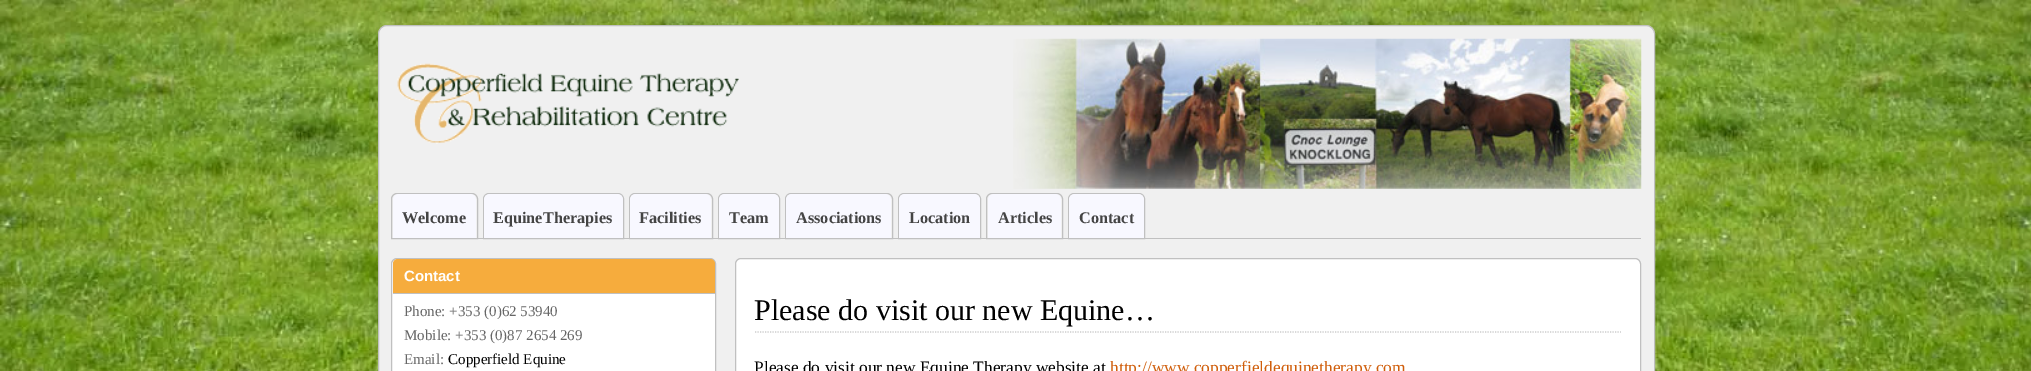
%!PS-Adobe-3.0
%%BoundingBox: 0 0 2031 371
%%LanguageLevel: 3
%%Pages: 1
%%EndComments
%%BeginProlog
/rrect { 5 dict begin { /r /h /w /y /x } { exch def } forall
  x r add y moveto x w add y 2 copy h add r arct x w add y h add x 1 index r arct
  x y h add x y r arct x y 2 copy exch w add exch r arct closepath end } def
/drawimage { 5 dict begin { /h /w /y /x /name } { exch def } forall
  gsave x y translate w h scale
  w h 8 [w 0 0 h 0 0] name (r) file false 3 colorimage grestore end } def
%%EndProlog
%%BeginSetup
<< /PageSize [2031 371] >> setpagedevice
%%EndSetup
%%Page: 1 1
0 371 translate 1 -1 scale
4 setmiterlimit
1 setgray
0 0 2031 371 rectfill
(images/1.raw) 0 0 2031 371 drawimage
0.941 setgray
378.5 25.5 1276 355 8.5 rrect gsave fill grestore
0.753 setgray
stroke
(images/2.raw) 1013 38 629 151 drawimage
(images/3.raw) 397 63 342 81 drawimage
478 238 1163 1 rectfill
newpath 397 193.5 moveto 472 193.5 lineto 475 193.5 477.5 196 477.5 199 curveto 477.5 238.5 lineto 391.5 238.5 lineto 391.5 199 lineto 391.5 196 394 193.5 397 193.5 curveto closepath stroke
0.973 0.973 1 setrgbcolor
newpath 399 194 moveto 470 194 lineto 473.5 194 476 196.5 476 200 curveto 476 238 lineto 393 238 lineto 393 200 lineto 393 196.5 395.5 194 399 194 curveto closepath fill
0.753 setgray
newpath 489 193.5 moveto 618 193.5 lineto 621 193.5 623.5 196 623.5 199 curveto 623.5 238.5 lineto 483.5 238.5 lineto 483.5 199 lineto 483.5 196 486 193.5 489 193.5 curveto closepath stroke
0.973 0.973 1 setrgbcolor
newpath 490 194 moveto 617 194 lineto 620.5 194 623 196.5 623 200 curveto 623 238 lineto 484 238 lineto 484 200 lineto 484 196.5 486.5 194 490 194 curveto closepath fill
0.753 setgray
newpath 635 193.5 moveto 707 193.5 lineto 710 193.5 712.5 196 712.5 199 curveto 712.5 238.5 lineto 629.5 238.5 lineto 629.5 199 lineto 629.5 196 632 193.5 635 193.5 curveto closepath stroke
0.973 0.973 1 setrgbcolor
newpath 636 194 moveto 705 194 lineto 708.5 194 711 196.5 711 200 curveto 711 238 lineto 630 238 lineto 630 200 lineto 630 196.5 632.5 194 636 194 curveto closepath fill
0.753 setgray
newpath 724 193.5 moveto 774 193.5 lineto 777 193.5 779.5 196 779.5 199 curveto 779.5 238.5 lineto 718.5 238.5 lineto 718.5 199 lineto 718.5 196 721 193.5 724 193.5 curveto closepath stroke
0.973 0.973 1 setrgbcolor
newpath 725 194 moveto 773 194 lineto 776.5 194 779 196.5 779 200 curveto 779 238 lineto 719 238 lineto 719 200 lineto 719 196.5 721.5 194 725 194 curveto closepath fill
0.753 setgray
newpath 791 193.5 moveto 887 193.5 lineto 890 193.5 892.5 196 892.5 199 curveto 892.5 238.5 lineto 785.5 238.5 lineto 785.5 199 lineto 785.5 196 788 193.5 791 193.5 curveto closepath stroke
0.973 0.973 1 setrgbcolor
newpath 792 194 moveto 885 194 lineto 888.5 194 891 196.5 891 200 curveto 891 238 lineto 786 238 lineto 786 200 lineto 786 196.5 788.5 194 792 194 curveto closepath fill
0.753 setgray
newpath 904 193.5 moveto 975 193.5 lineto 978 193.5 980.5 196 980.5 199 curveto 980.5 238.5 lineto 898.5 238.5 lineto 898.5 199 lineto 898.5 196 901 193.5 904 193.5 curveto closepath stroke
0.973 0.973 1 setrgbcolor
newpath 905 194 moveto 974 194 lineto 977.5 194 980 196.5 980 200 curveto 980 238 lineto 899 238 lineto 899 200 lineto 899 196.5 901.5 194 905 194 curveto closepath fill
0.753 setgray
newpath 992 193.5 moveto 1057 193.5 lineto 1060 193.5 1062.5 196 1062.5 199 curveto 1062.5 238.5 lineto 986.5 238.5 lineto 986.5 199 lineto 986.5 196 989 193.5 992 193.5 curveto closepath stroke
0.973 0.973 1 setrgbcolor
newpath 994 194 moveto 1055 194 lineto 1058.5 194 1061 196.5 1061 200 curveto 1061 238 lineto 988 238 lineto 988 200 lineto 988 196.5 990.5 194 994 194 curveto closepath fill
0.753 setgray
newpath 1074 193.5 moveto 1139 193.5 lineto 1142 193.5 1144.5 196 1144.5 199 curveto 1144.5 238.5 lineto 1068.5 238.5 lineto 1068.5 199 lineto 1068.5 196 1071 193.5 1074 193.5 curveto closepath stroke
0.973 0.973 1 setrgbcolor
newpath 1075 194 moveto 1138 194 lineto 1141.5 194 1144 196.5 1144 200 curveto 1144 238 lineto 1069 238 lineto 1069 200 lineto 1069 196.5 1071.5 194 1075 194 curveto closepath fill
1 setgray
391.5 258.5 324 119 5.5 rrect gsave fill grestore
0.753 setgray
stroke
0.965 0.675 0.239 setrgbcolor
newpath 398 259 moveto 710 259 lineto 713 259 715 261 715 264 curveto 715 294 lineto 393 294 lineto 393 264 lineto 393 261 395 259 398 259 curveto closepath fill
0.753 setgray
393 293 322 1 rectfill
1 setgray
735.5 258.5 905 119 5.5 rrect gsave fill grestore
0.753 setgray
stroke
0.8 setgray
1.2 setlinewidth
[1.25 1.25] 0 setdash
newpath 755 332 moveto 1621 332 lineto stroke
/LiberationSerif-Bold [16.25 0 0 -16.25 0 0] selectfont
0.267 setgray
402 223 moveto (Welcome) show
493 223 moveto (EquineTherapies) show
639 223 moveto (Facilities) show
729 223 moveto (Team) show
796 223 moveto (Associations) show
909 223 moveto (Location) show
998 223 moveto (Articles) show
1079 223 moveto (Contact) show
/LiberationSans-Bold [15 0 0 -15 0 0] selectfont
1 setgray
404 281 moveto (Contact) show
/LiberationSerif-Regular [15 0 0 -15 0 0] selectfont
0.4 setgray
404 316 moveto (Phone: +353 \(0\)62 53940) show
404 340 moveto (Mobile: +353 \(0\)87 2654 269) show
404 364 moveto (Email:) show
0 setgray
448 364 moveto (Copperfield Equine) show
/LiberationSerif-Regular [30 0 0 -30 0 0] selectfont
754 320 moveto (Please do visit our new Equine…) show
/LiberationSerif-Regular [17.4 0 0 -17.4 0 0] selectfont
754 373 moveto (Please do visit our new Equine Therapy website at) show
0.816 0.369 0.043 setrgbcolor
1110 373 moveto (http://www.copperfieldequinetherapy.com) show
showpage
%%EOF
